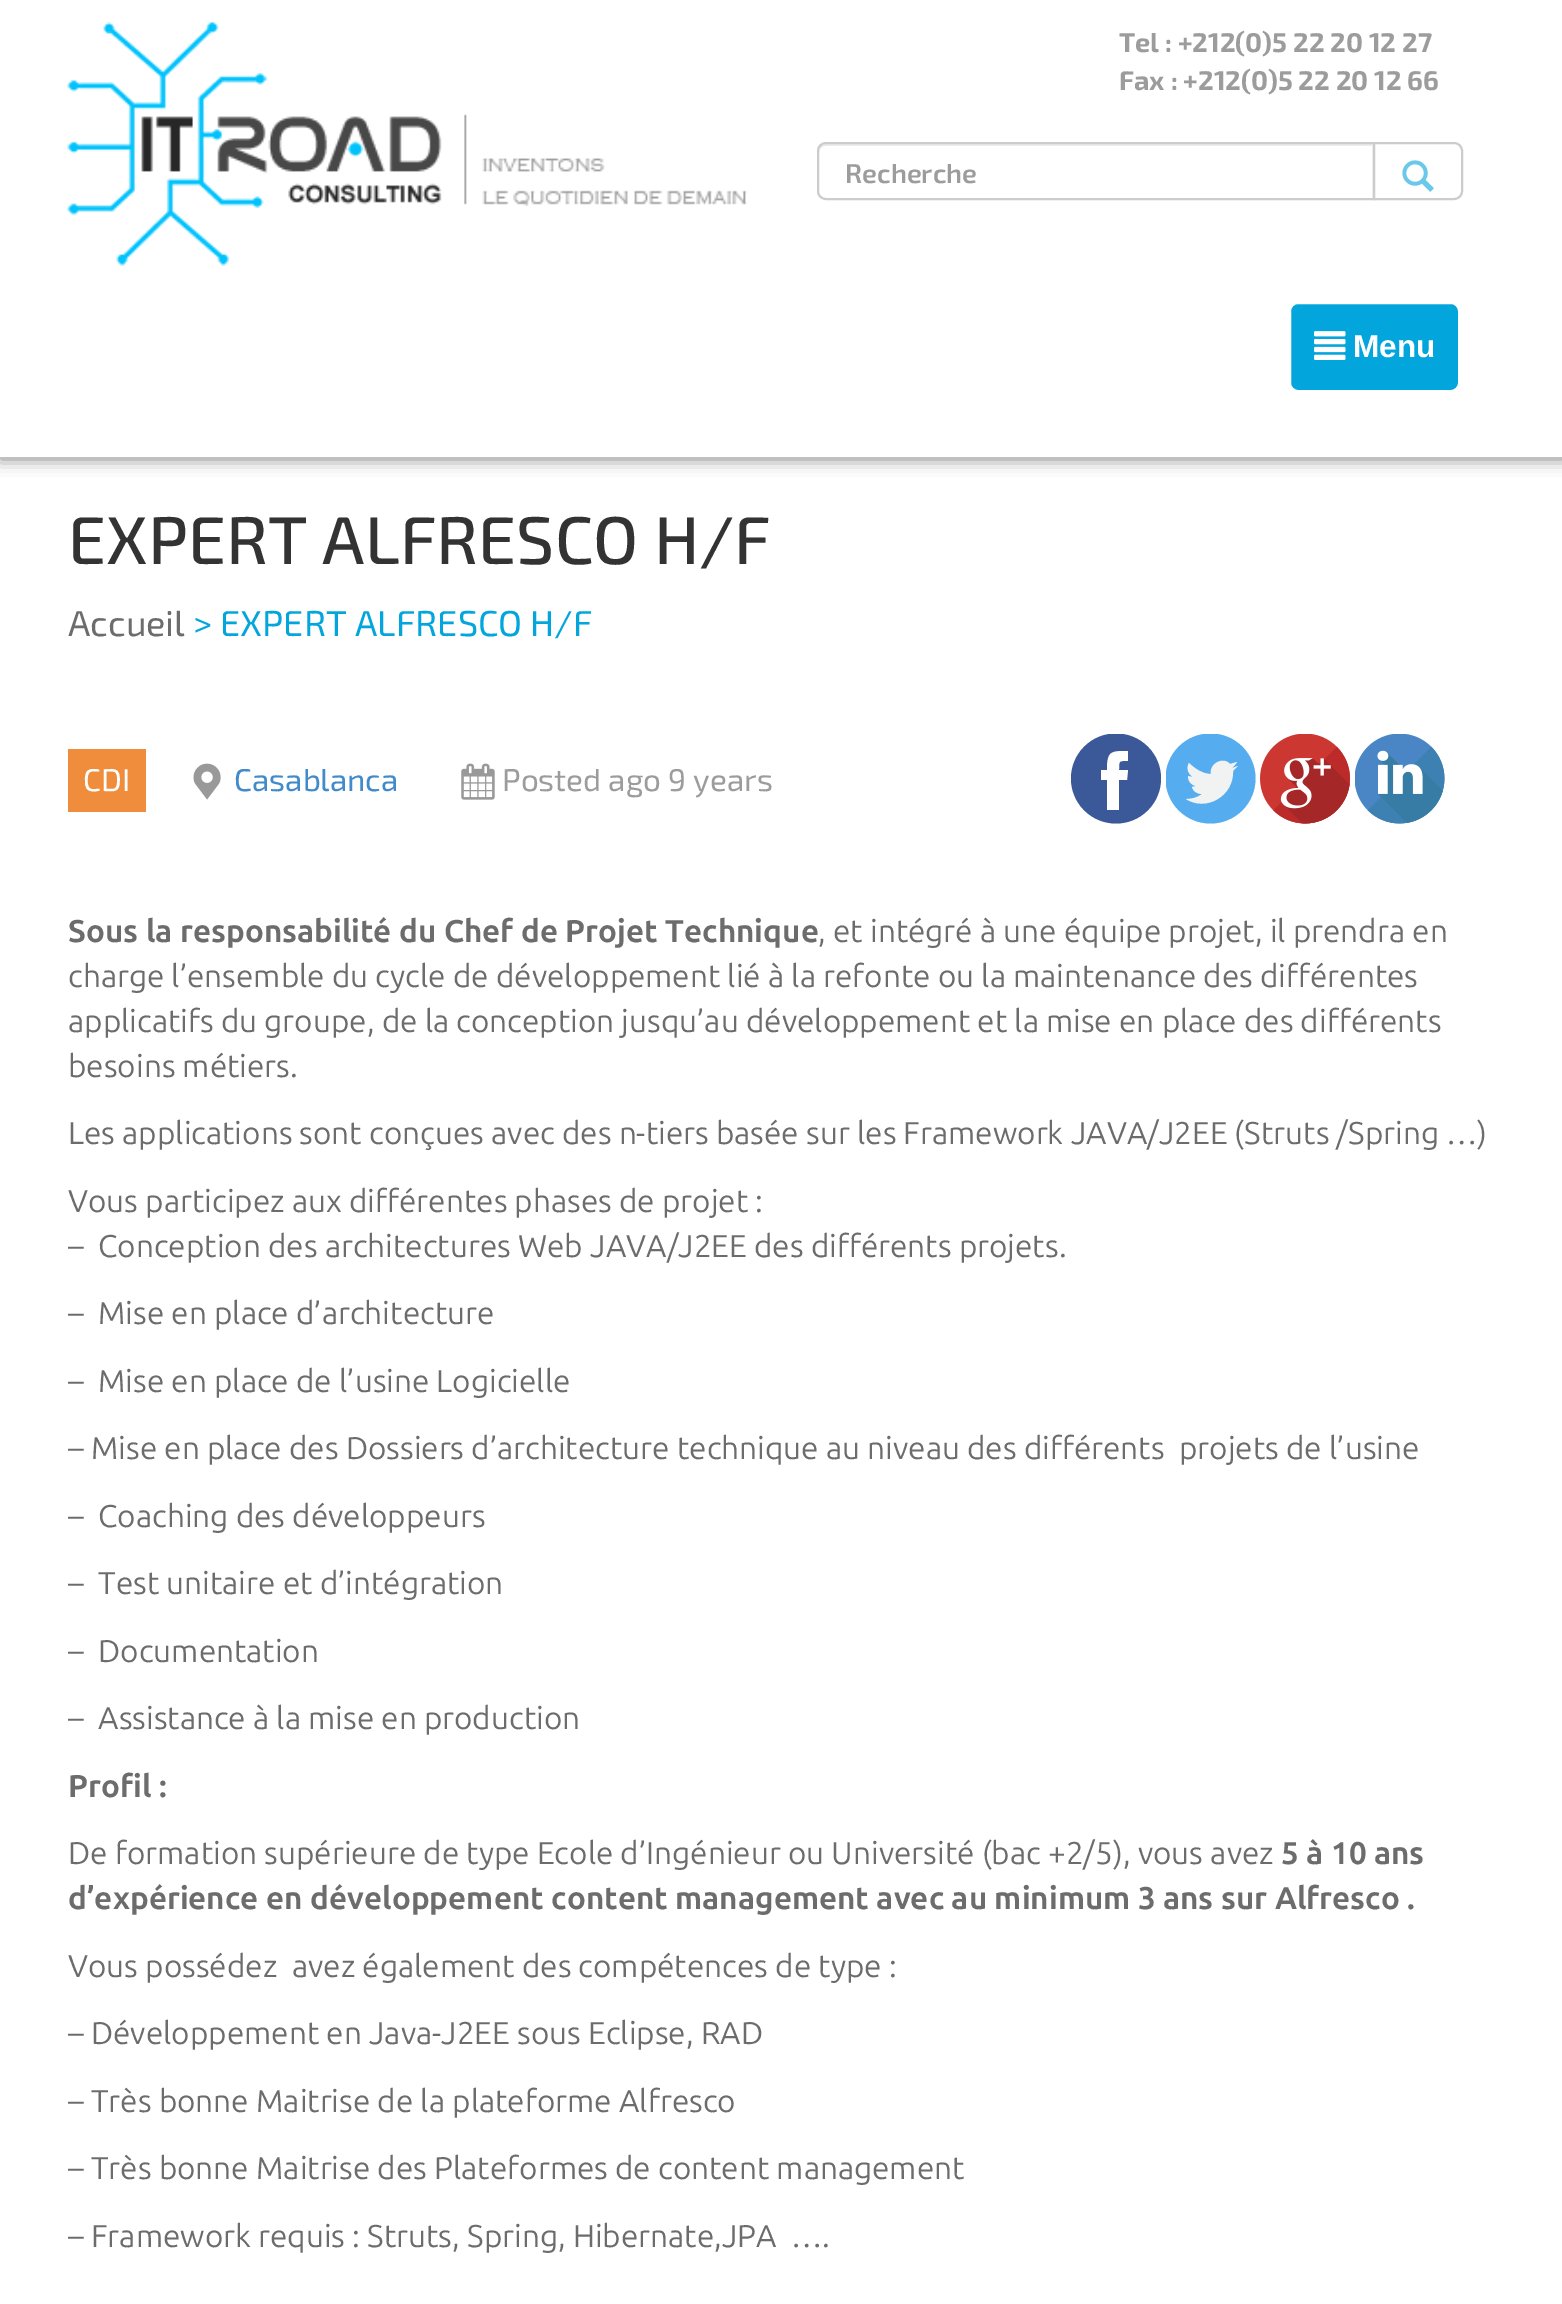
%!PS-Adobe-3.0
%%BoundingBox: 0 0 1562 2304
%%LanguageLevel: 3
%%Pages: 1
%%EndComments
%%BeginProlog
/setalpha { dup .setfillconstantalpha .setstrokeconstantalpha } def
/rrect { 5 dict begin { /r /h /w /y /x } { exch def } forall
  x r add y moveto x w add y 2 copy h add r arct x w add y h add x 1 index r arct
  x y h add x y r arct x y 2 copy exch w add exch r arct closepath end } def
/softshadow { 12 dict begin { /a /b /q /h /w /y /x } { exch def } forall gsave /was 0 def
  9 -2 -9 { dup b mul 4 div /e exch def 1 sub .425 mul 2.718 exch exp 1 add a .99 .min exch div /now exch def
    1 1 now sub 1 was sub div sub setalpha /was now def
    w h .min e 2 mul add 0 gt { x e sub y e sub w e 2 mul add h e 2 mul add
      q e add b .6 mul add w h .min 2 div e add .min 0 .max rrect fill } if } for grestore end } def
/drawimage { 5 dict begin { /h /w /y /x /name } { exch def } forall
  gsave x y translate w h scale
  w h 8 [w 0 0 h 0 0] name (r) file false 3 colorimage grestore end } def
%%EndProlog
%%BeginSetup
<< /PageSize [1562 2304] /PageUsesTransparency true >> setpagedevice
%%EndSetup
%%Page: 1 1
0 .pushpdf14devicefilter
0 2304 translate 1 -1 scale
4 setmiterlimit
1 setgray
0 0 1562 2304 rectfill
gsave
newpath 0 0 moveto 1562 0 lineto 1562 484 lineto 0 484 lineto closepath 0 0 moveto 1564 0 lineto 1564 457 lineto 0 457 lineto closepath eoclip newpath
0 0.004 0.004 setrgbcolor
0 2 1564 457 0 8 0.49 softshadow
grestore
(images/1.raw) 67 22 680 244 drawimage
0.925 setgray
newpath 826 146 moveto 1372 146 lineto 1372 198 lineto 1373 198 lineto 1373 144 lineto 826 144 lineto 822 144 819 147 819 151 curveto 819 153 lineto 819 149 822 146 826 146 curveto closepath fill
0.8 setgray
2 setlinewidth
newpath 826 143 moveto 1374 143 lineto 1374 199 lineto 826 199 lineto 821.5 199 818 195.5 818 191 curveto 818 151 lineto 818 146.5 821.5 143 826 143 curveto closepath stroke
1 setgray
newpath 1374 143 moveto 1454 143 lineto 1458.5 143 1462 146.5 1462 151 curveto 1462 191 lineto 1462 195.5 1458.5 199 1454 199 curveto 1374 199 lineto closepath gsave fill grestore
0.8 setgray
stroke
(images/2.raw) 1402 160 32 32 drawimage
0.012 0.651 0.863 setrgbcolor
1290 303 169 88 8 rrect gsave fill grestore
1 setgray
stroke
(images/3.raw) 1314 331 32 29 drawimage
0.941 0.553 0.235 setrgbcolor
68 749 78 63 rectfill
(images/4.raw) 193 763 28 37 drawimage
(images/5.raw) 461 763 34 37 drawimage
gsave
1071 734 90 90 rectclip
0.231 0.349 0.596 setrgbcolor
newpath 1116 778.5 45 0 360 arc closepath fill
grestore
gsave
1166 734 90 90 rectclip
0.333 0.675 0.933 setrgbcolor
newpath 1210.5 778.5 45 0 360 arc closepath fill
grestore
(images/6.raw) 1260 734 90 90 drawimage
(images/7.raw) 1355 734 90 90 drawimage
1 setgray
newpath 1127 780 moveto 1119 780 lineto 1119 810 lineto 1107 810 lineto 1107 780 lineto 1101 780 lineto 1101 770 lineto 1107 770 lineto 1107 751 1111 751 1128 751 curveto 1128 761 lineto 1119 761 1119 760 1119 770 curveto 1128 770 lineto closepath fill
0.945 0.949 0.949 setrgbcolor
newpath 1238 766 moveto 1232 768 lineto 1234 766 1236 764 1237 762 curveto 1230 764 lineto 1223 756 1209 764 1211 774 curveto 1203 774 1195 769 1189 763 curveto 1186 768 1188 774 1193 777 curveto 1188 776 lineto 1188 781 1191 785 1196 786 curveto 1192 787 lineto 1193 791 1197 794 1202 794 curveto 1197 798 1191 799 1186 799 curveto 1206 812 1234 796 1233 771 curveto closepath fill
/Exo2-Bold [27 0 0 -27 0 0] selectfont
0.612 setgray
1119 52 moveto (Tel : +212\(0\)5 22 20 12 27) show
1119 90 moveto (Fax : +212\(0\)5 22 20 12 66) show
/Exo2-SemiBold [27 0 0 -27 0 0] selectfont
845 183 moveto (Recherche) show
/LiberationSans-Bold [31.5 0 0 -31.5 0 0] selectfont
1 setgray
1353 357 moveto (Menu) show
/Exo2-Medium [67.5 0 0 -67.5 0 0] selectfont
0.2 setgray
68 564 moveto (EXPERT ALFRESCO H/F) show
/Exo2-Regular [36 0 0 -36 0 0] selectfont
0.424 setgray
68 636 moveto (Accueil) show
0.012 0.651 0.863 setrgbcolor
193 636 moveto (> EXPERT ALFRESCO H/F) show
/Exo2-Regular [31.5 0 0 -31.5 0 0] selectfont
1 setgray
83 791 moveto (CDI) show
0.259 0.545 0.792 setrgbcolor
234 791 moveto (Casablanca) show
0.612 setgray
502 791 moveto (Posted ago 9 years) show
/Ubuntu-Bold [31.5 0 0 -31.5 0 0] selectfont
0.424 setgray
68 942 moveto (Sous la responsabilité du Chef de Projet Technique) show
/Ubuntu-Regular [31.5 0 0 -31.5 0 0] selectfont
818 942 moveto (, et intégré à une équipe projet, il prendra en) show
68 987 moveto (charge l’ensemble du cycle de développement lié à la refonte ou la maintenance des différentes) show
68 1032 moveto (applicatifs du groupe, de la conception jusqu’au développement et la mise en place des différents) show
68 1077 moveto (besoins métiers.) show
68 1144 moveto (Les applications sont conçues avec des n-tiers basée sur les Framework JAVA/J2EE \(Struts /Spring …\)) show
68 1212 moveto (Vous participez aux différentes phases de projet :) show
68 1257 moveto (–  Conception des architectures Web JAVA/J2EE des différents projets.) show
68 1324 moveto (–  Mise en place d’architecture) show
68 1392 moveto (–  Mise en place de l’usine Logicielle) show
68 1459 moveto (– Mise en place des Dossiers d’architecture technique au niveau des différents  projets de l’usine) show
68 1527 moveto (–  Coaching des développeurs) show
68 1594 moveto (–  Test unitaire et d’intégration) show
68 1662 moveto (–  Documentation) show
68 1729 moveto (–  Assistance à la mise en production) show
/Ubuntu-Bold [31.5 0 0 -31.5 0 0] selectfont
68 1797 moveto (Profil :) show
/Ubuntu-Regular [31.5 0 0 -31.5 0 0] selectfont
68 1864 moveto (De formation supérieure de type Ecole d’Ingénieur ou Université \(bac +2/5\), vous avez) show
/Ubuntu-Bold [31.5 0 0 -31.5 0 0] selectfont
1281 1864 moveto (5 à 10 ans) show
68 1909 moveto (d’expérience en développement content management avec au minimum 3 ans sur Alfresco .) show
/Ubuntu-Regular [31.5 0 0 -31.5 0 0] selectfont
68 1977 moveto (Vous possédez  avez également des compétences de type :) show
68 2044 moveto (– Développement en Java-J2EE sous Eclipse, RAD) show
68 2112 moveto (– Très bonne Maitrise de la plateforme Alfresco) show
68 2179 moveto (– Très bonne Maitrise des Plateformes de content management) show
68 2247 moveto (– Framework requis : Struts, Spring, Hibernate,JPA  ….) show
.poppdf14devicefilter showpage
%%EOF
